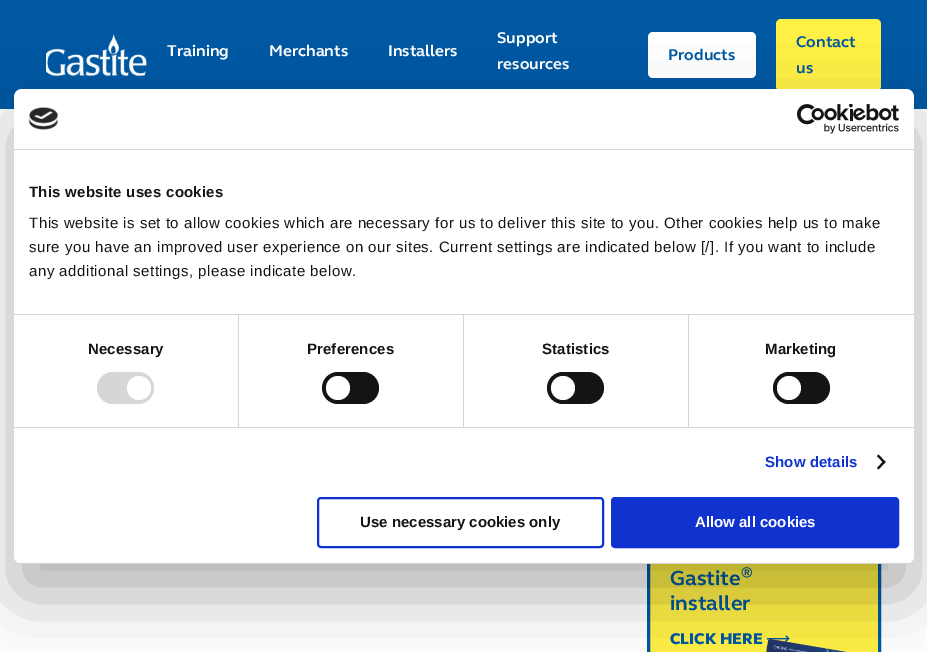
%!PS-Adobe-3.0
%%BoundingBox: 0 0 927 652
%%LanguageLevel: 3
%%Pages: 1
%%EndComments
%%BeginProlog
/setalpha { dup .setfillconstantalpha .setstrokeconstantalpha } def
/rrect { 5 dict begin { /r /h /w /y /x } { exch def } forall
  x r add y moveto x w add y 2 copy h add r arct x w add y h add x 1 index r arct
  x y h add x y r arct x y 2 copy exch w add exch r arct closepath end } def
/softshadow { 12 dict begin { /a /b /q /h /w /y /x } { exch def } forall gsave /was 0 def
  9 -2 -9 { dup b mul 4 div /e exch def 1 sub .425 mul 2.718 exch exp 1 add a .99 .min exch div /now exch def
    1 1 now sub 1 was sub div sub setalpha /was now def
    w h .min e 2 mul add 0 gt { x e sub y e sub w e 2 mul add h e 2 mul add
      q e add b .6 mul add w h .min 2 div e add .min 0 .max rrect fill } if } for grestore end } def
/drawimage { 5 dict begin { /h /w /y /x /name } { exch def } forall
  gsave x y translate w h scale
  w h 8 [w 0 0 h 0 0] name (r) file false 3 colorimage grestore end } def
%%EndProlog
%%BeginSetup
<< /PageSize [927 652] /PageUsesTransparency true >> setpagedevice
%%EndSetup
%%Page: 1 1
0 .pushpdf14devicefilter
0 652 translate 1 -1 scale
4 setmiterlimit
1 setgray
0 0 927 652 rectfill
0 0.345 0.635 setrgbcolor
0 0 927 109 rectfill
(images/1.raw) 46 34 101 42 drawimage
1 setgray
648 32 108 46 5 rrect fill
1 0.941 0.275 setrgbcolor
776 19 105 72 5 rrect fill
650 564 228 88 rectfill
0 0.345 0.635 setrgbcolor
3 setlinewidth
648.5 494.5 231 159 rectstroke
/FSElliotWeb-Bold [16 0 0 -16 0 0] selectfont
1 setgray
167 56 moveto (Training) show
269 56 moveto (Merchants) show
388 56 moveto (Installers) show
497 43 moveto (Support) show
497 69 moveto (resources) show
0 0.345 0.635 setrgbcolor
668 60 moveto (Products) show
796 47 moveto (Contact) show
796 73 moveto (us) show
/FSElliotWeb-Bold [21 0 0 -21 0 0] selectfont
670 585 moveto (Gastite) show
/FSElliotWeb-Bold [14 0 0 -14 0 0] selectfont
741 577 moveto (®) show
/FSElliotWeb-Bold [21 0 0 -21 0 0] selectfont
670 610 moveto (installer) show
/FSElliotWeb-Black [16 0 0 -16 0 0] selectfont
670 644 moveto (CLICK HERE) show
/DejaVuSans-Regular [17 0 0 -17 0 0] selectfont
766 644 moveto (⟶) show
(images/2.raw) 766 639 81 13 drawimage
0 setgray
14 121 900 475 8 34 0.3 softshadow
1 setgray
14 89 900 475 8 rrect fill
0.839 setgray
14 149 900 1 rectfill
(images/3.raw) 28 107 30 23 drawimage
(images/4.raw) 797 104 102 30 drawimage
14 314 900 1 rectfill
/LiberationSans-Bold [15 0 0 -15 0 0] selectfont
0.078 setgray
29 197 moveto 0.25 0 (This website uses cookies) ashow
/LiberationSans-Regular [15 0 0 -15 0 0] selectfont
29 228 moveto 0.5 0 (This website is set to allow cookies which are necessary for us to deliver this site to you. Other cookies help us to make) ashow
29 252 moveto 0.5 0 (sure you have an improved user experience on our sites. Current settings are indicated below [/]. If you want to include) ashow
29 276 moveto 0.5 0 (any additional settings, please indicate below.) ashow
0.839 setgray
14 427 900 1 rectfill
238 315 1 112 rectfill
/LiberationSans-Bold [15 0 0 -15 0 0] selectfont
0.078 setgray
88 354 moveto 0.1 0 (Necessary) ashow
0.839 setgray
97 372 57 32 16 rrect fill
1 setgray
newpath 139 388 12 0 360 arc closepath fill
0.839 setgray
463 315 1 112 rectfill
0.078 setgray
307 354 moveto 0.1 0 (Preferences) ashow
322 372 57 32 16 rrect fill
1 setgray
newpath 338 388 12 0 360 arc closepath fill
0.839 setgray
688 315 1 112 rectfill
0.078 setgray
542 354 moveto 0.1 0 (Statistics) ashow
547 372 57 32 16 rrect fill
1 setgray
newpath 563 388 12 0 360 arc closepath fill
0.078 setgray
765 354 moveto 0.1 0 (Marketing) ashow
773 372 57 32 16 rrect fill
1 setgray
newpath 789 388 12 0 360 arc closepath fill
0.063 0.196 0.812 setrgbcolor
765 467 moveto 0.1 0 (Show details) ashow
0.078 setgray
newpath 878.5 454.5 moveto 885.5 462 lineto 884 463.5 lineto 877 456 lineto closepath fill
newpath 884 460.5 moveto 885.5 462 lineto 878.5 469.5 lineto 877 468 lineto closepath fill
gsave
14 89 900 475 8 rrect clip newpath
0.839 setgray
14 563 900 1 rectfill
grestore
0.063 0.196 0.812 setrgbcolor
2 setlinewidth
318 498 285 49 3 rrect stroke
0.078 setgray
360 527 moveto (Use necessary cookies only) show
0.063 0.196 0.812 setrgbcolor
612 498 286 49 3 rrect gsave fill grestore
stroke
1 setgray
695 527 moveto (Allow all cookies) show
.poppdf14devicefilter showpage
%%EOF
